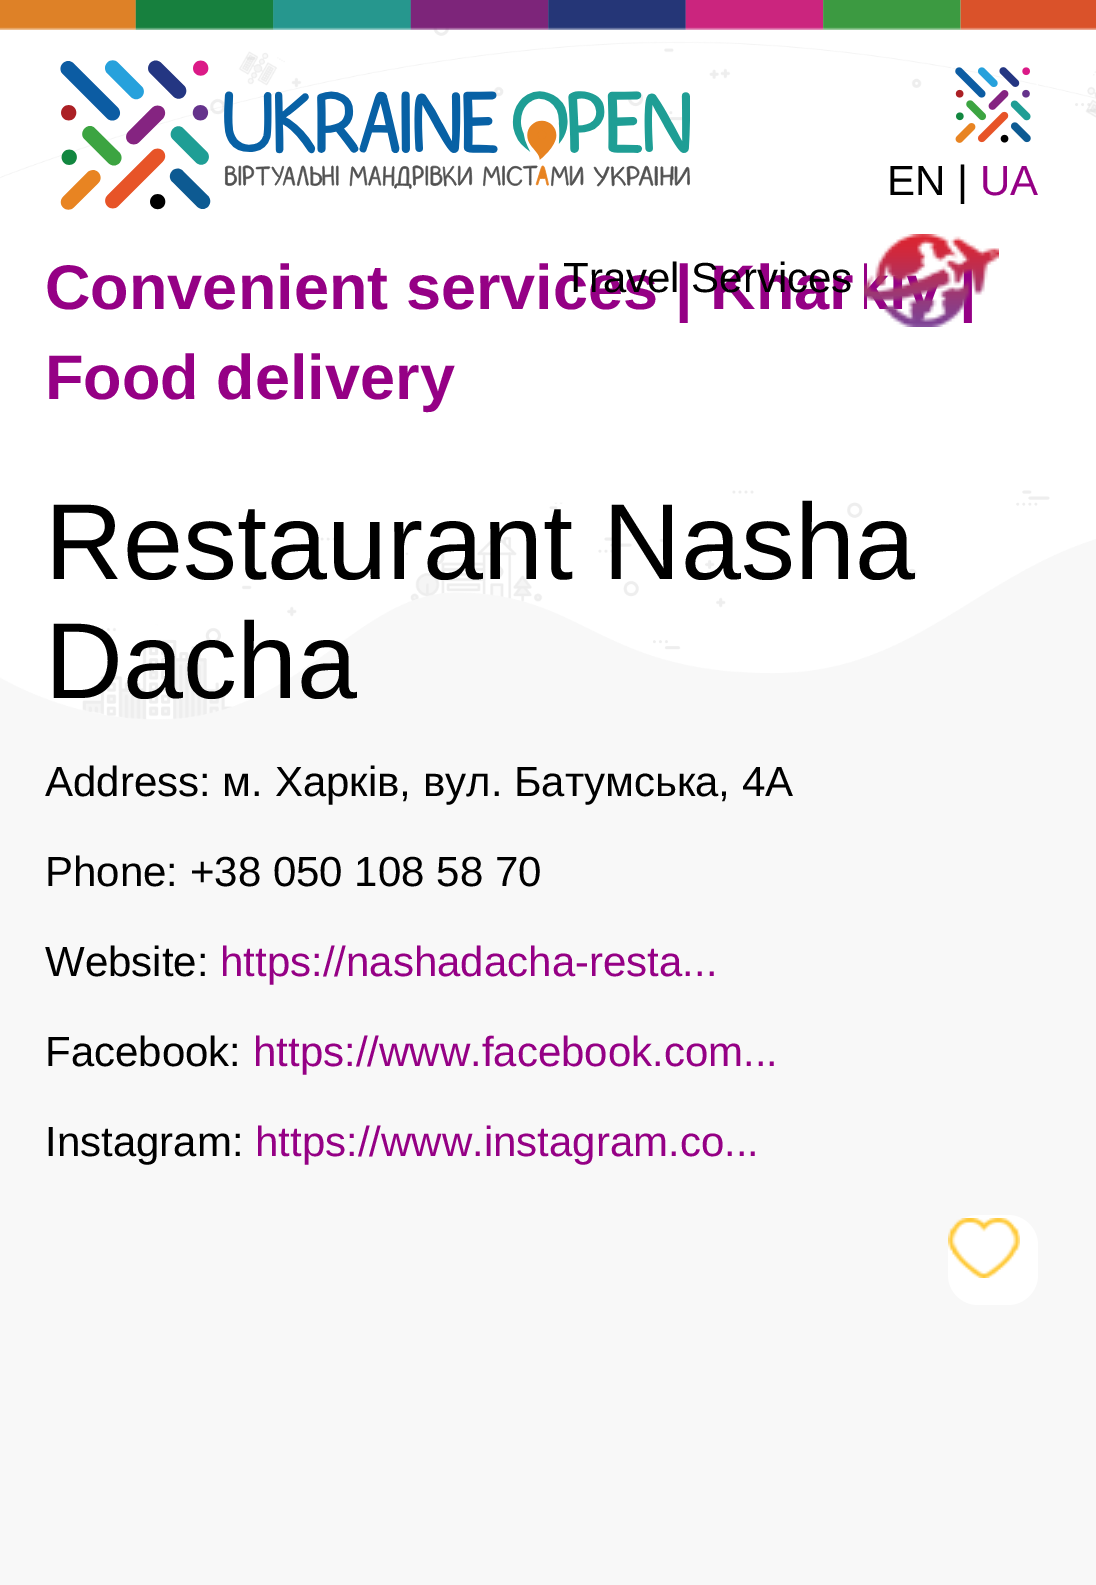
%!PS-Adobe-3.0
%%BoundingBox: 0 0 1096 1585
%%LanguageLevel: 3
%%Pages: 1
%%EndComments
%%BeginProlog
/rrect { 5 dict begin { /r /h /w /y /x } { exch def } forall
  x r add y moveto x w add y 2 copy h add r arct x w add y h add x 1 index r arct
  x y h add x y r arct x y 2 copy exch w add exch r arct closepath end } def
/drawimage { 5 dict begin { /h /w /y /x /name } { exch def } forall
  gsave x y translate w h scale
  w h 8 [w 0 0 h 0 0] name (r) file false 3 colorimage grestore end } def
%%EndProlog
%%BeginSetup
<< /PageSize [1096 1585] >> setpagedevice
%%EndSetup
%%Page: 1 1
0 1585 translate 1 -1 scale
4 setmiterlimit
1 setgray
0 0 1096 1585 rectfill
(images/1.raw) 0 27 1096 1558 drawimage
(images/2.raw) 0 0 1096 30 drawimage
(images/3.raw) 60 60 630 150 drawimage
(images/4.raw) 951 67 87 76 drawimage
(images/5.raw) 864 234 135 93 drawimage
948 1215 90 90 30 rrect fill
(images/6.raw) 948 1218 72 60 drawimage
/LiberationSans-Regular [42 0 0 -42 0 0] selectfont
0 setgray
887 195 moveto (EN |) show
0.584 0 0.522 setrgbcolor
980 195 moveto (UA) show
/LiberationSans-Bold [63 0 0 -63 0 0] selectfont
45 309 moveto (Convenient services | Khar) show
/LiberationSans-Regular [42 0 0 -42 0 0] selectfont
0 setgray
563 292 moveto (Travel Services) show
/LiberationSans-Bold [63 0 0 -63 0 0] selectfont
0.584 0 0.522 setrgbcolor
45 399 moveto (Food delivery) show
/LiberationSans-Regular [108 0 0 -108 0 0] selectfont
0 setgray
45 579 moveto (Restaurant Nasha) show
45 698 moveto (Dacha) show
/LiberationSans-Regular [42 0 0 -42 0 0] selectfont
45 796 moveto (Address: м. Харків, вул. Батумська, 4А) show
45 886 moveto (Phone: +38 050 108 58 70) show
45 976 moveto (Website:) show
0.584 0 0.522 setrgbcolor
220 976 moveto (https://nashadacha-resta...) show
0 setgray
45 1066 moveto (Facebook:) show
0.584 0 0.522 setrgbcolor
253 1066 moveto (https://www.facebook.com...) show
0 setgray
45 1156 moveto (Instagram:) show
0.584 0 0.522 setrgbcolor
255 1156 moveto (https://www.instagram.co...) show
showpage
%%EOF
